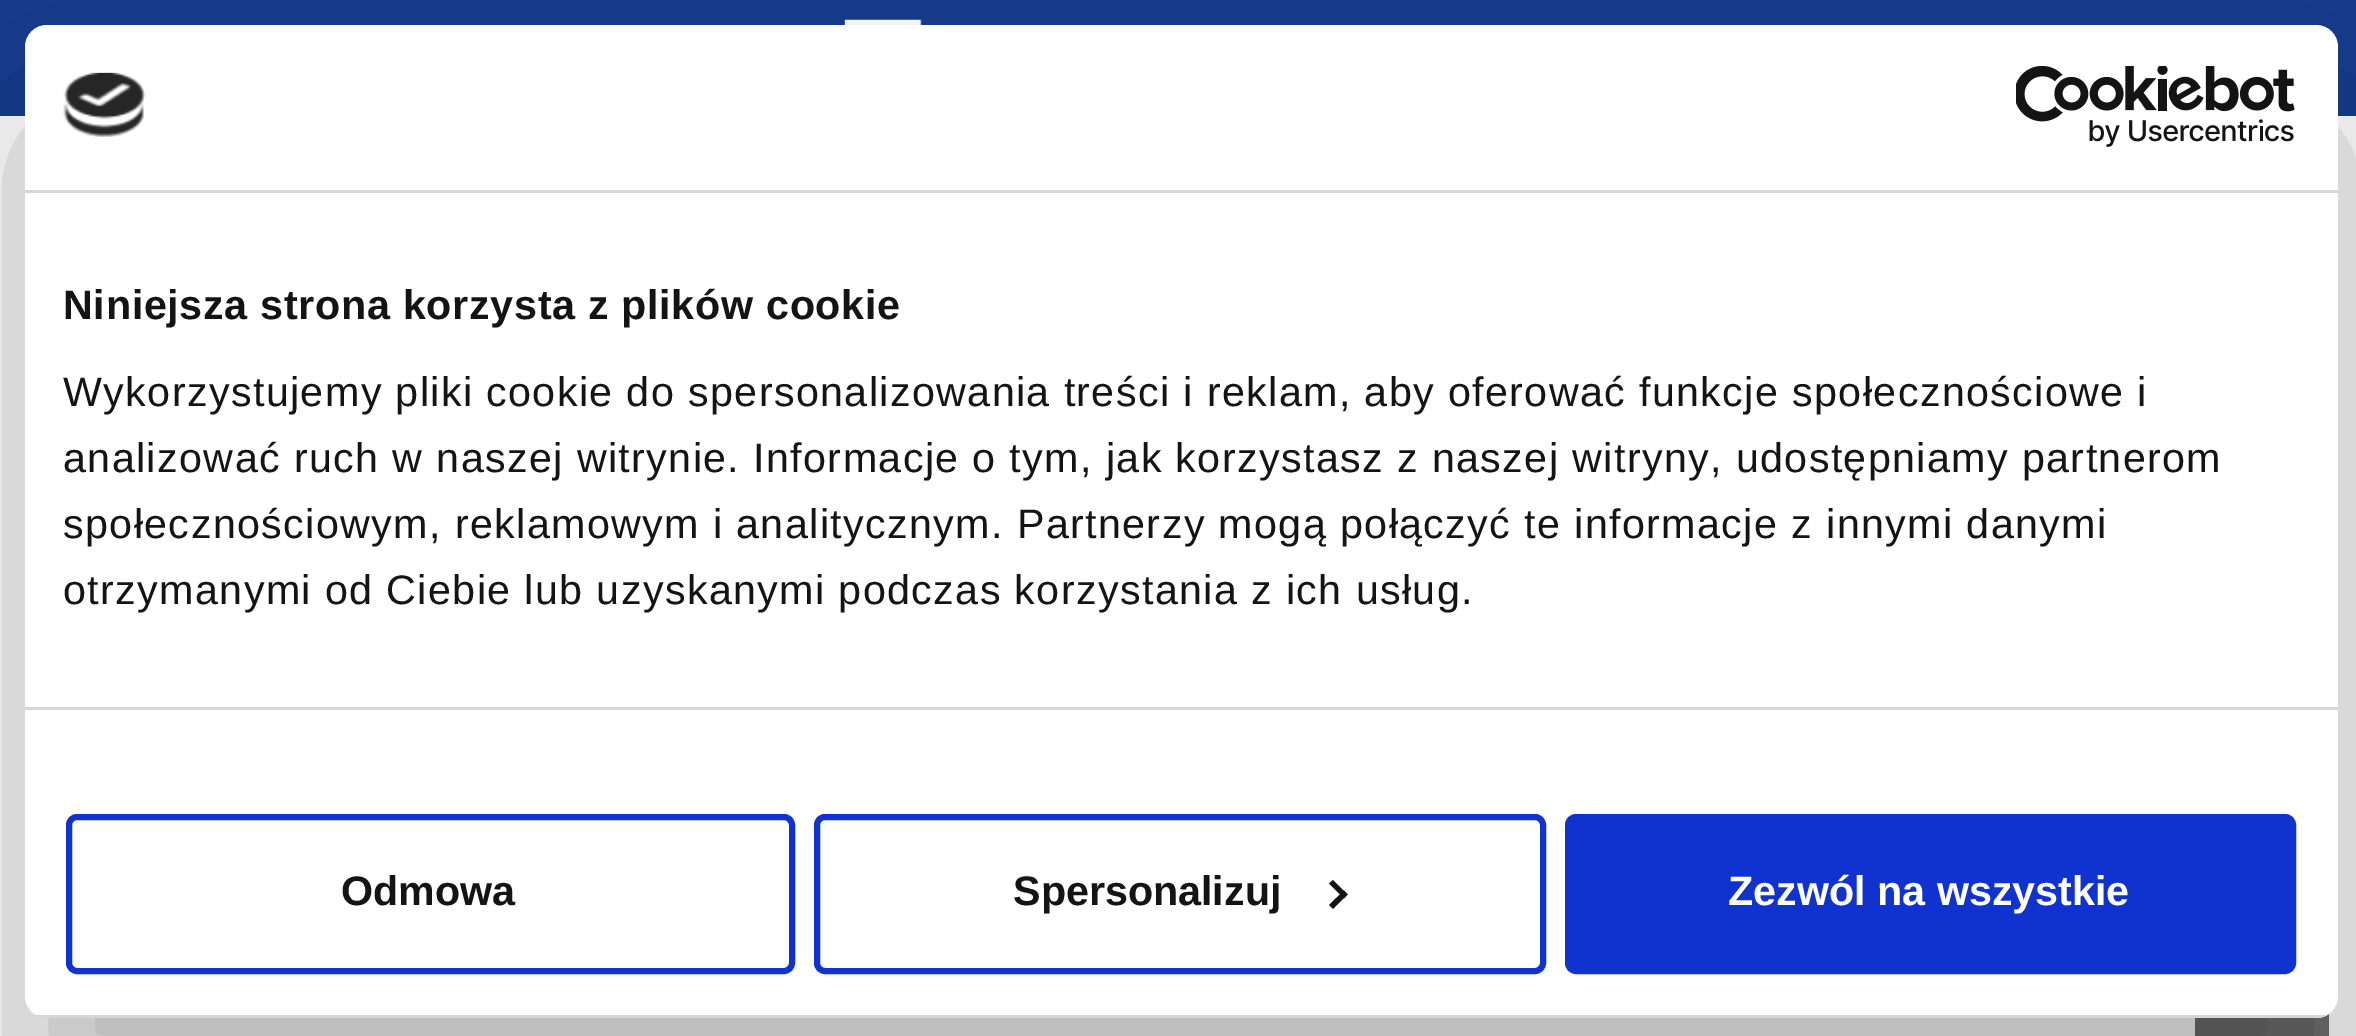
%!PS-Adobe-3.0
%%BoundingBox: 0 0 2356 1036
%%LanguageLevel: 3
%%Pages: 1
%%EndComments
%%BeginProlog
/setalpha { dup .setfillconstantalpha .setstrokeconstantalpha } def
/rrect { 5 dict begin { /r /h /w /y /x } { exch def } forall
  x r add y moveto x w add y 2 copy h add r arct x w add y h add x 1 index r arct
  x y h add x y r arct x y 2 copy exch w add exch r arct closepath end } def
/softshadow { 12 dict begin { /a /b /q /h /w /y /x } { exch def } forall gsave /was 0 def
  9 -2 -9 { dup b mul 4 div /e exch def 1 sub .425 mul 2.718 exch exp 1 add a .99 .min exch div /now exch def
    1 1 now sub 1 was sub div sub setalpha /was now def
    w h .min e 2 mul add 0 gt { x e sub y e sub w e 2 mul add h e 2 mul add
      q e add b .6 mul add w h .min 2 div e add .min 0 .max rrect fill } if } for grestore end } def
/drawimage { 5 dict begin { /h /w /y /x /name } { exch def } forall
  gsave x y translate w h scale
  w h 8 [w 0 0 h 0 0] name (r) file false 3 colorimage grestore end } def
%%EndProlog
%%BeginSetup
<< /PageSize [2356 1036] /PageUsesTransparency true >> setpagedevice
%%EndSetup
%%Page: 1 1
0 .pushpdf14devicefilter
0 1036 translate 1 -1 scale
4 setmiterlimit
1 setgray
0 0 2356 1036 rectfill
0.086 0.235 0.553 setrgbcolor
0 0 2356 116 rectfill
(images/1.raw) 844 19 78 6 drawimage
0.439 setgray
2195 1013 134 23 rectfill
gsave
newpath 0 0 moveto 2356 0 lineto 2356 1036 lineto 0 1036 lineto closepath 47 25 moveto 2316 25 lineto 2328 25 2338 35 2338 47 curveto 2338 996 lineto 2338 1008 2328 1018 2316 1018 curveto 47 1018 lineto 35 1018 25 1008 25 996 curveto 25 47 lineto 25 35 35 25 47 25 curveto closepath eoclip newpath
0 setgray
25 113 2313 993 22 93.5 0.3 softshadow
grestore
1 setgray
25 25 2313 993 22 rrect fill
0.839 setgray
25 190 2313 3 rectfill
(images/2.raw) 63 72 83 65 drawimage
(images/3.raw) 2016 66 279 81 drawimage
25 707 2313 3 rectfill
gsave
25 25 2313 993 22 rrect clip newpath
36 1015 2291 3 rectfill
grestore
0.063 0.196 0.812 setrgbcolor
6 setlinewidth
69 817 723 154 8 rrect stroke
817 817 726 154 8 rrect stroke
0.078 setgray
newpath 1333 880 moveto 1347.5 894.5 lineto 1344 898.5 lineto 1329 883.5 lineto closepath fill
newpath 1344 890.5 moveto 1347.5 894.5 lineto 1333 909 lineto 1329 905 lineto closepath fill
0.063 0.196 0.812 setrgbcolor
1568 817 725 154 8 rrect gsave fill grestore
stroke
/LiberationSans-Bold [41.25 0 0 -41.25 0 0] selectfont
0.078 setgray
63 319 moveto 0.7 0 (Niniejsza strona korzysta z plików cookie) ashow
/LiberationSans-Regular [41.25 0 0 -41.25 0 0] selectfont
63 406 moveto 1.38 0 (Wykorzystujemy pliki cookie do spersonalizowania treści i reklam, aby oferować funkcje społecznościowe i) ashow
63 472 moveto 1.38 0 (analizować ruch w naszej witrynie. Informacje o tym, jak korzystasz z naszej witryny, udostępniamy partnerom) ashow
63 538 moveto 1.38 0 (społecznościowym, reklamowym i analitycznym. Partnerzy mogą połączyć te informacje z innymi danymi) ashow
63 604 moveto 1.38 0 (otrzymanymi od Ciebie lub uzyskanymi podczas korzystania z ich usług.) ashow
/LiberationSans-Bold [41.25 0 0 -41.25 0 0] selectfont
341 905 moveto (Odmowa) show
1013 905 moveto (Spersonalizuj) show
1 setgray
1728 905 moveto (Zezwól na wszystkie) show
.poppdf14devicefilter showpage
%%EOF
